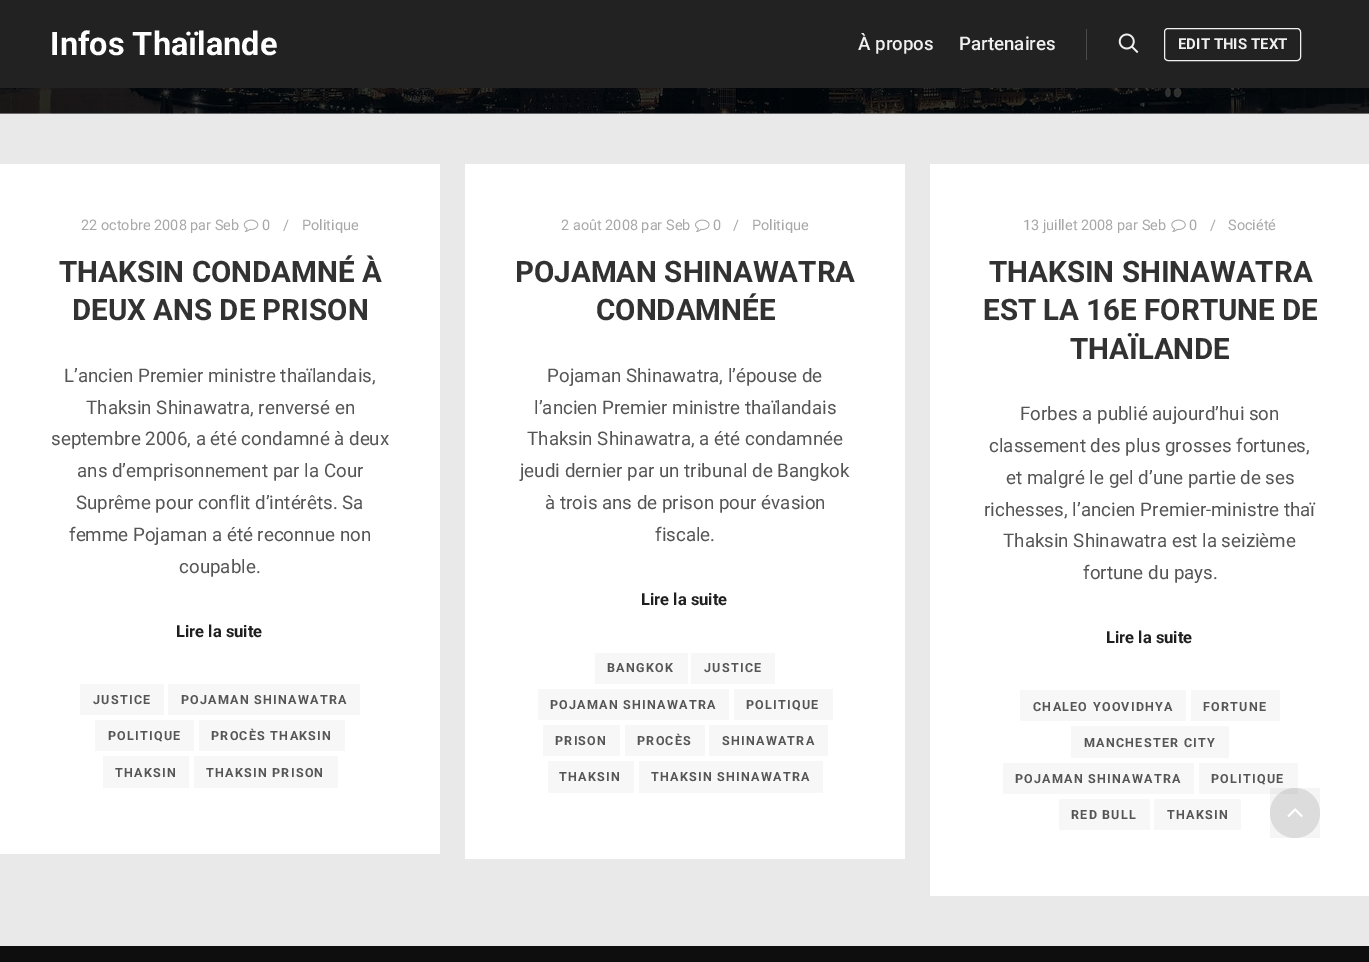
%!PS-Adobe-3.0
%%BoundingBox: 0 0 1369 962
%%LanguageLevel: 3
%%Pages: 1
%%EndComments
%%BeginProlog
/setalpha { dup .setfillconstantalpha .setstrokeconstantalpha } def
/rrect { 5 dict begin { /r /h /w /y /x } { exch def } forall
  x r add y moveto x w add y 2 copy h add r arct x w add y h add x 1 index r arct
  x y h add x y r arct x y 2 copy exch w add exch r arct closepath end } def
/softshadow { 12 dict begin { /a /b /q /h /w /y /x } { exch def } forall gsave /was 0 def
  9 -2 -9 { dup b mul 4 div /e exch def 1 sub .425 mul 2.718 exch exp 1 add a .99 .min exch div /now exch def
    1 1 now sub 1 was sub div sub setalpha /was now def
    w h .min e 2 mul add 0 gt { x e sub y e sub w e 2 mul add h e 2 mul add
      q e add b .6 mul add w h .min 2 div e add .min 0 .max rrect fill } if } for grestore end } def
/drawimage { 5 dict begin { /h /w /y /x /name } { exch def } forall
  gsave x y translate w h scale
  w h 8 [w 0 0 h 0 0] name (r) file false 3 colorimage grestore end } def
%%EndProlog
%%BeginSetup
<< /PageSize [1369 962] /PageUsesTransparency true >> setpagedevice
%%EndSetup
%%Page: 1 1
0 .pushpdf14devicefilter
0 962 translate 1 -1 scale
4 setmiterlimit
0.914 setgray
0 0 1369 962 rectfill
0.729 setgray
0 113 1369 1 rectfill
(images/2.raw) 0 88 1369 26 drawimage
0 setgray
0 0 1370 88 0 7.5 0.09 softshadow
0.133 setgray
0 0 1369 88 rectfill
0.294 setgray
1086 29 1 31 rectfill
(images/1.raw) 1118 33 21 20 drawimage
0.941 setgray
1164.5 28.5 136 32 3.5 rrect stroke
1 setgray
0 164 440 690 rectfill
(images/3.raw) 243 219 16 13 drawimage
0.969 setgray
80 684 84 31 rectfill
168 684 192 31 rectfill
95 720 99 31 rectfill
199 720 146 31 rectfill
103 756 86 32 rectfill
194 756 144 32 rectfill
1 setgray
465 164 440 695 rectfill
(images/4.raw) 695 219 15 13 drawimage
0.969 setgray
595 653 93 31 rectfill
691 653 84 31 rectfill
538 689 191 31 rectfill
734 689 99 31 rectfill
543 725 77 31 rectfill
625 725 80 31 rectfill
709 725 119 31 rectfill
548 761 86 32 rectfill
639 761 184 32 rectfill
1 setgray
930 164 439 732 rectfill
(images/5.raw) 1171 219 15 13 drawimage
0.969 setgray
1020 690 166 31 rectfill
1191 690 89 31 rectfill
1071 726 158 32 rectfill
1003 763 191 31 rectfill
1199 763 99 31 rectfill
1059 799 91 31 rectfill
1154 799 87 31 rectfill
0.1 setalpha
0 setgray
newpath 1295 813 25 0 360 arc closepath fill
0.04 setalpha
1270 788 50 50 rectfill
1 setalpha
(images/6.raw) 1287 808 16 9 drawimage
0.055 setgray
0 946 1369 16 rectfill
/Roboto-Bold [32.5 0 0 -32.5 0 0] selectfont
1 setgray
50 55 moveto (Infos Thaïlande) show
/Roboto-Medium [18.75 0 0 -18.75 0 0] selectfont
0.941 setgray
858 50 moveto (À propos) show
959 50 moveto (Partenaires) show
/Roboto-Bold [15 0 0 -15 0 0] selectfont
1178 49 moveto (EDIT THIS TEXT) show
/Roboto-Regular [14.5 0 0 -14.5 0 0] selectfont
0.655 setgray
81 230 moveto (22 octobre 2008 par Seb) show
262 230 moveto (0) show
283 230 moveto (/) show
302 230 moveto (Politique) show
/Roboto-Bold [29.5 0 0 -29.5 0 0] selectfont
0.196 setgray
59 282 moveto (THAKSIN CONDAMNÉ À) show
72 320 moveto (DEUX ANS DE PRISON) show
/Roboto-Regular [18.75 0 0 -18.75 0 0] selectfont
0.333 setgray
64 382 moveto (L’ancien Premier ministre thaïlandais,) show
86 414 moveto (Thaksin Shinawatra, renversé en) show
51 445 moveto (septembre 2006, a été condamné à deux) show
77 477 moveto (ans d’emprisonnement par la Cour) show
76 509 moveto (Suprême pour conflit d’intérêts. Sa) show
69 541 moveto (femme Pojaman a été reconnue non) show
179 573 moveto (coupable.) show
/Roboto-Bold [16.5 0 0 -16.5 0 0] selectfont
0.122 setgray
176 637 moveto (Lire la suite) show
/Roboto-Bold [12.5 0 0 -12.5 0 0] selectfont
0.333 setgray
93 704 moveto 1.25 0 (JUSTICE) ashow
181 704 moveto 1.25 0 (POJAMAN SHINAWATRA) ashow
108 740 moveto 1.25 0 (POLITIQUE) ashow
211 740 moveto 1.25 0 (PROCÈS THAKSIN) ashow
115 777 moveto 1.25 0 (THAKSIN) ashow
206 777 moveto 1.25 0 (THAKSIN PRISON) ashow
/Roboto-Regular [14.5 0 0 -14.5 0 0] selectfont
0.655 setgray
561 230 moveto (2 août 2008 par Seb) show
713 230 moveto (0) show
733 230 moveto (/) show
752 230 moveto (Politique) show
/Roboto-Bold [29.5 0 0 -29.5 0 0] selectfont
0.196 setgray
515 282 moveto (POJAMAN SHINAWATRA) show
596 320 moveto (CONDAMNÉE) show
/Roboto-Regular [18.75 0 0 -18.75 0 0] selectfont
0.333 setgray
547 382 moveto (Pojaman Shinawatra, l’épouse de) show
534 414 moveto (l’ancien Premier ministre thaïlandais) show
527 445 moveto (Thaksin Shinawatra, a été condamnée) show
520 477 moveto (jeudi dernier par un tribunal de Bangkok) show
545 509 moveto (à trois ans de prison pour évasion) show
655 541 moveto (fiscale.) show
/Roboto-Bold [16.5 0 0 -16.5 0 0] selectfont
0.122 setgray
641 605 moveto (Lire la suite) show
/Roboto-Bold [12.5 0 0 -12.5 0 0] selectfont
0.333 setgray
607 672 moveto 1.25 0 (BANGKOK) ashow
704 672 moveto 1.25 0 (JUSTICE) ashow
550 709 moveto 1.25 0 (POJAMAN SHINAWATRA) ashow
746 709 moveto 1.25 0 (POLITIQUE) ashow
555 745 moveto 1.25 0 (PRISON) ashow
637 745 moveto 1.25 0 (PROCÈS) ashow
722 745 moveto 1.25 0 (SHINAWATRA) ashow
559 781 moveto 1.25 0 (THAKSIN) ashow
651 781 moveto 1.25 0 (THAKSIN SHINAWATRA) ashow
/Roboto-Regular [14.5 0 0 -14.5 0 0] selectfont
0.655 setgray
1023 230 moveto (13 juillet 2008 par Seb) show
1189 230 moveto (0) show
1210 230 moveto (/) show
1228 230 moveto (Société) show
/Roboto-Bold [29.5 0 0 -29.5 0 0] selectfont
0.196 setgray
989 282 moveto (THAKSIN SHINAWATRA) show
983 320 moveto (EST LA 16E FORTUNE DE) show
1070 359 moveto (THAÏLANDE) show
/Roboto-Regular [18.75 0 0 -18.75 0 0] selectfont
0.333 setgray
1020 420 moveto (Forbes a publié aujourd’hui son) show
989 452 moveto (classement des plus grosses fortunes,) show
1006 484 moveto (et malgré le gel d’une partie de ses) show
984 516 moveto (richesses, l’ancien Premier-ministre thaï) show
1003 547 moveto (Thaksin Shinawatra est la seizième) show
1083 579 moveto (fortune du pays.) show
/Roboto-Bold [16.5 0 0 -16.5 0 0] selectfont
0.122 setgray
1106 643 moveto (Lire la suite) show
/Roboto-Bold [12.5 0 0 -12.5 0 0] selectfont
0.333 setgray
1033 711 moveto 1.25 0 (CHALEO YOOVIDHYA) ashow
1203 711 moveto 1.25 0 (FORTUNE) ashow
1084 747 moveto 1.25 0 (MANCHESTER CITY) ashow
1015 783 moveto 1.25 0 (POJAMAN SHINAWATRA) ashow
1211 783 moveto 1.25 0 (POLITIQUE) ashow
1071 819 moveto 1.25 0 (RED BULL) ashow
1167 819 moveto 1.25 0 (THAKSIN) ashow
.poppdf14devicefilter showpage
%%EOF
